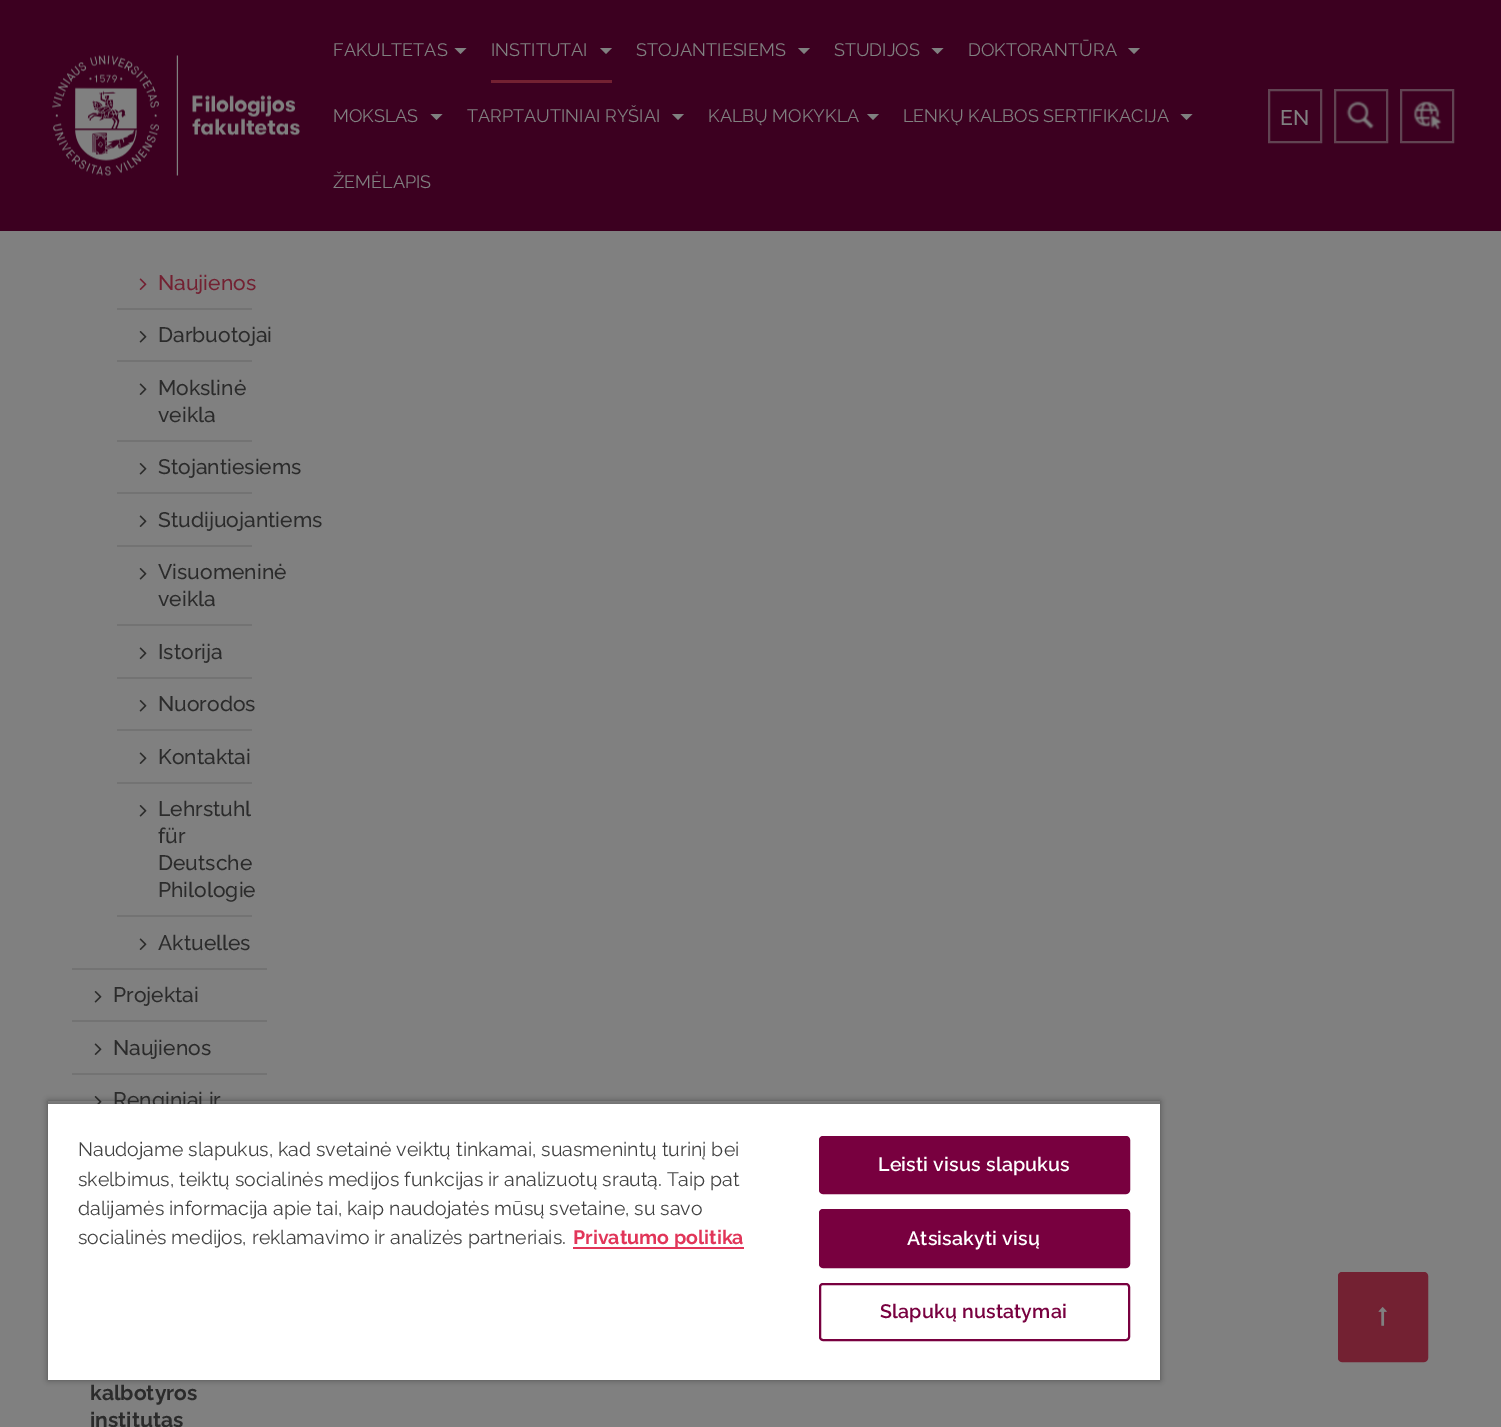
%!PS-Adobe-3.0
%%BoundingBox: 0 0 1501 1427
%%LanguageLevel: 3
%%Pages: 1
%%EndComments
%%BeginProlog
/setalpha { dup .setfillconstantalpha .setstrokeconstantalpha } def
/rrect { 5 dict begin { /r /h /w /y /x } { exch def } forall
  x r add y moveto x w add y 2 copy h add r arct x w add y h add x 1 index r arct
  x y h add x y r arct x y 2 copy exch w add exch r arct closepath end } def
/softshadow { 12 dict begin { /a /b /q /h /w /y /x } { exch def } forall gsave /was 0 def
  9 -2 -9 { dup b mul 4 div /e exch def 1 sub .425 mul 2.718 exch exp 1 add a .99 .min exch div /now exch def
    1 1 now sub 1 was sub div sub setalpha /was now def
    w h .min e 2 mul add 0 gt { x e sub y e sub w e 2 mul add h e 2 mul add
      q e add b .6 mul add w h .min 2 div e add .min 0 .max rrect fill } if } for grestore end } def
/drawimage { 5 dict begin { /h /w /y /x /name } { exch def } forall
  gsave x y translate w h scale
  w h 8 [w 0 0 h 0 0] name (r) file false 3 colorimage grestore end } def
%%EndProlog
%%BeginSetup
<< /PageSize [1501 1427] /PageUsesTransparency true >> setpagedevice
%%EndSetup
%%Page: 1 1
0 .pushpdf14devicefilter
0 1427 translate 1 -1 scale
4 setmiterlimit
0.502 setgray
0 0 1501 1427 rectfill
0.235 0 0.125 setrgbcolor
0 0 1501 231 rectfill
(images/1.raw) 52 55 248 121 drawimage
0.502 setgray
newpath 454.5 48 moveto 466.5 48 lineto 460.5 54 lineto closepath fill
newpath 600 48 moveto 612 48 lineto 606 54 lineto closepath fill
0.451 0.129 0.196 setrgbcolor
491 80 121 3 rectfill
0.502 setgray
newpath 798 48 moveto 810 48 lineto 804 54 lineto closepath fill
newpath 931.5 48 moveto 943.5 48 lineto 937.5 54 lineto closepath fill
newpath 1128 48 moveto 1140 48 lineto 1134 54 lineto closepath fill
newpath 430.5 114 moveto 442.5 114 lineto 436.5 120 lineto closepath fill
newpath 672 114 moveto 684 114 lineto 678 120 lineto closepath fill
newpath 867 114 moveto 879 114 lineto 873 120 lineto closepath fill
newpath 1180.5 114 moveto 1192.5 114 lineto 1186.5 120 lineto closepath fill
0.38 0.263 0.322 setrgbcolor
2 setlinewidth
1269 90 52 52 rectstroke
(images/2.raw) 1346 101 29 29 drawimage
1335 90 52 52 rectstroke
1401 90 52 52 rectstroke
(images/3.raw) 1413 101 29 29 drawimage
0.451 setgray
72 968 195 2 rectfill
117 308 135 2 rectfill
(images/4.raw) 139 278 8 12 drawimage
117 360 135 2 rectfill
(images/5.raw) 139 331 8 12 drawimage
117 440 135 2 rectfill
(images/6.raw) 139 383 8 12 drawimage
117 492 135 2 rectfill
(images/5.raw) 139 463 8 12 drawimage
117 545 135 2 rectfill
(images/6.raw) 139 515 8 12 drawimage
117 624 135 2 rectfill
(images/5.raw) 139 568 8 12 drawimage
117 677 135 2 rectfill
(images/6.raw) 139 647 8 12 drawimage
117 729 135 2 rectfill
(images/5.raw) 139 700 8 12 drawimage
117 782 135 2 rectfill
(images/6.raw) 139 752 8 12 drawimage
117 915 135 2 rectfill
(images/5.raw) 139 805 8 12 drawimage
(images/6.raw) 139 938 8 12 drawimage
72 1020 195 2 rectfill
(images/5.raw) 94 991 8 12 drawimage
72 1073 195 2 rectfill
(images/6.raw) 94 1043 8 12 drawimage
(images/7.raw) 94 1096 8 8 drawimage
0.451 0.129 0.196 setrgbcolor
1339 1273 88 88 3 rrect gsave fill grestore
stroke
(images/8.raw) 1378 1307 9 19 drawimage
gsave
newpath 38 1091 moveto 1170 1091 lineto 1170 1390 lineto 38 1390 lineto closepath 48 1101 moveto 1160 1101 lineto 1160 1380 lineto 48 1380 lineto closepath eoclip newpath
0 setgray
48 1101 1112 279 0 3 0.35 softshadow
grestore
gsave
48 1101 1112 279 rectclip
0 setgray
48 1104 1112 276 0 3 0.2 softshadow
grestore
/Raleway-Regular [18 0 0 -18 0 0] selectfont
0.502 setgray
333 56 moveto (FAKULTETAS) show
491 56 moveto (INSTITUTAI) show
636 56 moveto (STOJANTIESIEMS) show
834 56 moveto (STUDIJOS) show
968 56 moveto (DOKTORANTŪRA) show
333 122 moveto (MOKSLAS) show
467 122 moveto (TARPTAUTINIAI RYŠIAI) show
708 122 moveto (KALBŲ MOKYKLA) show
903 122 moveto (LENKŲ KALBOS SERTIFIKACIJA) show
333 188 moveto (ŽEMĖLAPIS) show
/Raleway-Medium [21 0 0 -21 0 0] selectfont
1280 125 moveto (EN) show
0.451 0.129 0.196 setrgbcolor
158 290 moveto (Naujienos) show
0.169 setgray
158 342 moveto (Darbuotojai) show
158 395 moveto (Mokslinė) show
158 422 moveto (veikla) show
158 474 moveto (Stojantiesiems) show
158 527 moveto (Studijuojantiems) show
158 579 moveto (Visuomeninė) show
158 606 moveto (veikla) show
158 659 moveto (Istorija) show
158 711 moveto (Nuorodos) show
158 764 moveto (Kontaktai) show
158 816 moveto (Lehrstuhl) show
158 843 moveto (für) show
158 870 moveto (Deutsche) show
158 897 moveto (Philologie) show
158 950 moveto (Aktuelles) show
113 1002 moveto (Projektai) show
113 1055 moveto (Naujienos) show
113 1107 moveto (Renginiai ir) show
/Raleway-Bold [21 0 0 -21 0 0] selectfont
90 1400 moveto (kalbotyros) show
90 1427 moveto (institutas) show
1 setgray
48 1104 1112 276 rectfill
/Raleway-Regular [19.5 0 0 -19.5 0 0] selectfont
0.255 setgray
78 1156 moveto (Naudojame slapukus, kad svetainė veiktų tinkamai, suasmenintų turinį bei) show
78 1186 moveto (skelbimus, teiktų socialinės medijos funkcijas ir analizuotų srautą. Taip pat) show
78 1215 moveto (dalijamės informacija apie tai, kaip naudojatės mūsų svetaine, su savo) show
78 1244 moveto (socialinės medijos, reklamavimo ir analizės partneriais.) show
0.882 0.208 0.349 setrgbcolor
573 1247 171 2 rectfill
/Raleway-Bold [19.5 0 0 -19.5 0 0] selectfont
573 1244 moveto (Privatumo politika) show
0.471 0 0.247 setrgbcolor
820 1137 309 56 3 rrect gsave fill grestore
stroke
/Raleway-SemiBold [19.5 0 0 -19.5 0 0] selectfont
1 setgray
878 1171 moveto 0.2 0 (Leisti visus slapukus) ashow
0.471 0 0.247 setrgbcolor
820 1210 309 57 3 rrect gsave fill grestore
stroke
1 setgray
907 1245 moveto 0.2 0 (Atsisakyti visų) ashow
0.471 0 0.247 setrgbcolor
820 1284 309 56 3 rrect stroke
880 1318 moveto 0.2 0 (Slapukų nustatymai) ashow
.poppdf14devicefilter showpage
%%EOF
